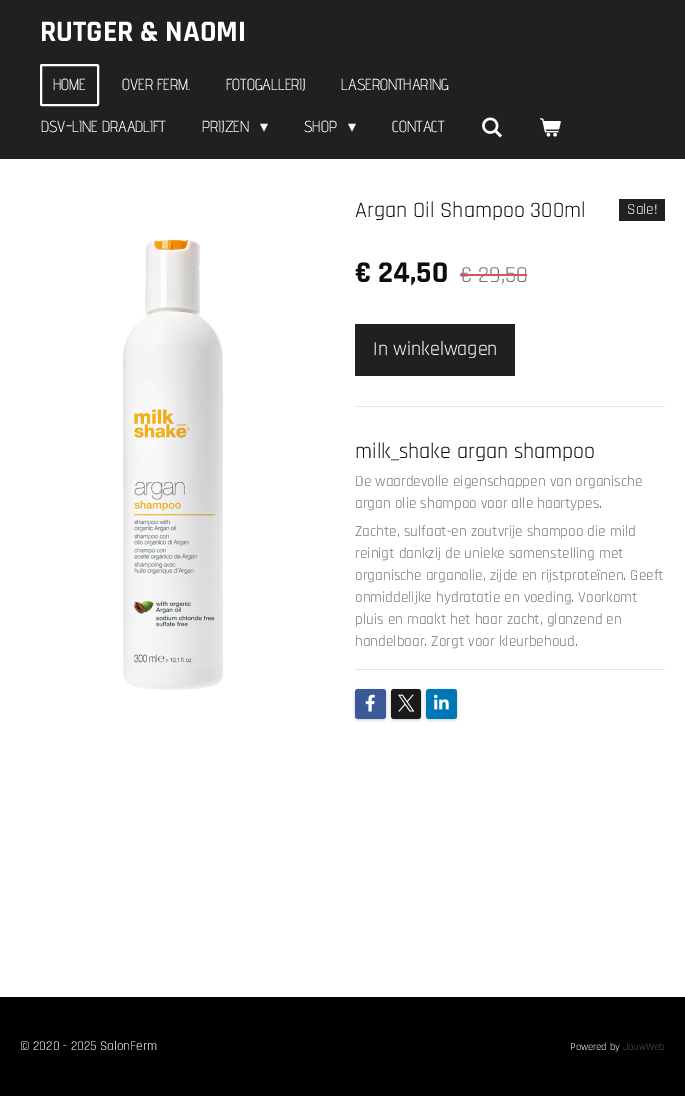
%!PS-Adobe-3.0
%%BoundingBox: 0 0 685 1096
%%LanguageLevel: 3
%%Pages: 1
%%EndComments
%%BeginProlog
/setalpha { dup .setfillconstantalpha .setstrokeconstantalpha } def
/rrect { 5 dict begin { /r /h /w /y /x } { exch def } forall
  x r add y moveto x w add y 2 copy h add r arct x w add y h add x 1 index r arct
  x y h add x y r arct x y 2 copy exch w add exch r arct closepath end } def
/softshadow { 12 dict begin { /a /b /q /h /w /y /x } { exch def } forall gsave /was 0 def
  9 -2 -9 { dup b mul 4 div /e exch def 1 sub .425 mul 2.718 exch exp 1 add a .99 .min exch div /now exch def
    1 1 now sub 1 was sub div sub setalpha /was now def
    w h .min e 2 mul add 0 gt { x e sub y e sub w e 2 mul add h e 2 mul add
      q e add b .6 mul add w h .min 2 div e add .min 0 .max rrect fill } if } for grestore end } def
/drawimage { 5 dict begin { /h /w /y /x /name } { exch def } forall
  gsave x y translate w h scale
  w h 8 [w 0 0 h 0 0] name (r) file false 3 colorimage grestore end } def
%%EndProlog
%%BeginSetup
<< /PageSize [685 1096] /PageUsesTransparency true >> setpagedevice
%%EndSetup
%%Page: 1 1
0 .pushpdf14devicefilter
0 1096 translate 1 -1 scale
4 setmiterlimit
1 setgray
0 0 685 1096 rectfill
0.125 setgray
0 0 685 159 rectfill
1 setgray
2 setlinewidth
41 65 57 40 1 rrect stroke
(images/1.raw) 482 117 20 21 drawimage
(images/2.raw) 540 118 21 19 drawimage
0.125 setgray
619 199 46 22 rectfill
(images/3.raw) 123 239 100 451 drawimage
355 324 160 52 rectfill
0.89 setgray
355 406 310 1 rectfill
355 669 310 1 rectfill
0 setgray
355 690 31 30 3 1.5 0.2 softshadow
0.231 0.349 0.596 setrgbcolor
355 689 31 30 3 rrect fill
(images/4.raw) 365 694 10 18 drawimage
0 setgray
391 690 30 30 3 1.5 0.2 softshadow
0.102 setgray
391 689 30 30 3 rrect fill
(images/5.raw) 398 694 17 18 drawimage
0 setgray
426 690 31 30 3 1.5 0.2 softshadow
0 0.467 0.71 setrgbcolor
426 689 31 30 3 rrect fill
(images/6.raw) 434 694 15 16 drawimage
0 setgray
0 997 685 99 rectfill
/Rajdhani-Bold [30 0 0 -30 0 0] selectfont
1 setgray
40 41 moveto (RUTGER & NAOMI) show
/AdventPro-Regular [16 0 0 -16 0 0] selectfont
53 90 moveto (HOME) show
122 90 moveto (OVER FERM.) show
226 90 moveto (FOTOGALLERIJ) show
341 90 moveto (LASERONTHARING) show
41 132 moveto (DSV-LINE DRAADLIFT) show
202 132 moveto (PRIJZEN) show
/DejaVuSans-Regular [16 0 0 -16 0 0] selectfont
260 132 moveto (▾) show
/AdventPro-Regular [16 0 0 -16 0 0] selectfont
304 132 moveto (SHOP) show
/DejaVuSans-Regular [16 0 0 -16 0 0] selectfont
348 132 moveto (▾) show
/AdventPro-Regular [16 0 0 -16 0 0] selectfont
392 132 moveto (CONTACT) show
/Rajdhani-Regular [22 0 0 -22 0 0] selectfont
0.059 0.055 0.055 setrgbcolor
355 217 moveto (Argan Oil Shampoo 300ml) show
/Rajdhani-Regular [15.3 0 0 -15.3 0 0] selectfont
1 setgray
627 214 moveto (Sale!) show
/Rajdhani-Bold [30.5 0 0 -30.5 0 0] selectfont
0.059 0.055 0.055 setrgbcolor
355 282 moveto (€ 24,50) show
/Rajdhani-Regular [23 0 0 -23 0 0] selectfont
0.451 setgray
460 282 moveto (€ 29,50) show
0.851 0.325 0.31 setrgbcolor
460 274 67 2 rectfill
/Rajdhani-Regular [20 0 0 -20 0 0] selectfont
1 setgray
373 355 moveto (In winkelwagen) show
/Rajdhani-Regular [22 0 0 -22 0 0] selectfont
0.059 0.055 0.055 setrgbcolor
355 458 moveto (milk_shake argan shampoo) show
/Rajdhani-Regular [15.3 0 0 -15.3 0 0] selectfont
0.451 setgray
355 486 moveto (De waardevolle eigenschappen van organische) show
355 508 moveto (argan olie shampoo voor alle haartypes.) show
355 536 moveto (Zachte, sulfaat-en zoutvrije shampoo die mild) show
355 558 moveto (reinigt dankzij de unieke samenstelling met) show
355 580 moveto (organische arganolie, zijde en rijstproteïnen. Geeft) show
355 602 moveto (onmiddelijke hydratatie en voeding. Voorkomt) show
355 624 moveto (pluis en maakt het haar zacht, glanzend en) show
355 646 moveto (handelbaar. Zorgt voor kleurbehoud.) show
/Rajdhani-Regular [13.25 0 0 -13.25 0 0] selectfont
1 setgray
20 1050 moveto (© 2020 - 2025 SalonFerm) show
/Rajdhani-Regular [10.5 0 0 -10.5 0 0] selectfont
570 1050 moveto (Powered by) show
0.325 setgray
623 1050 moveto (JouwWeb) show
.poppdf14devicefilter showpage
%%EOF
